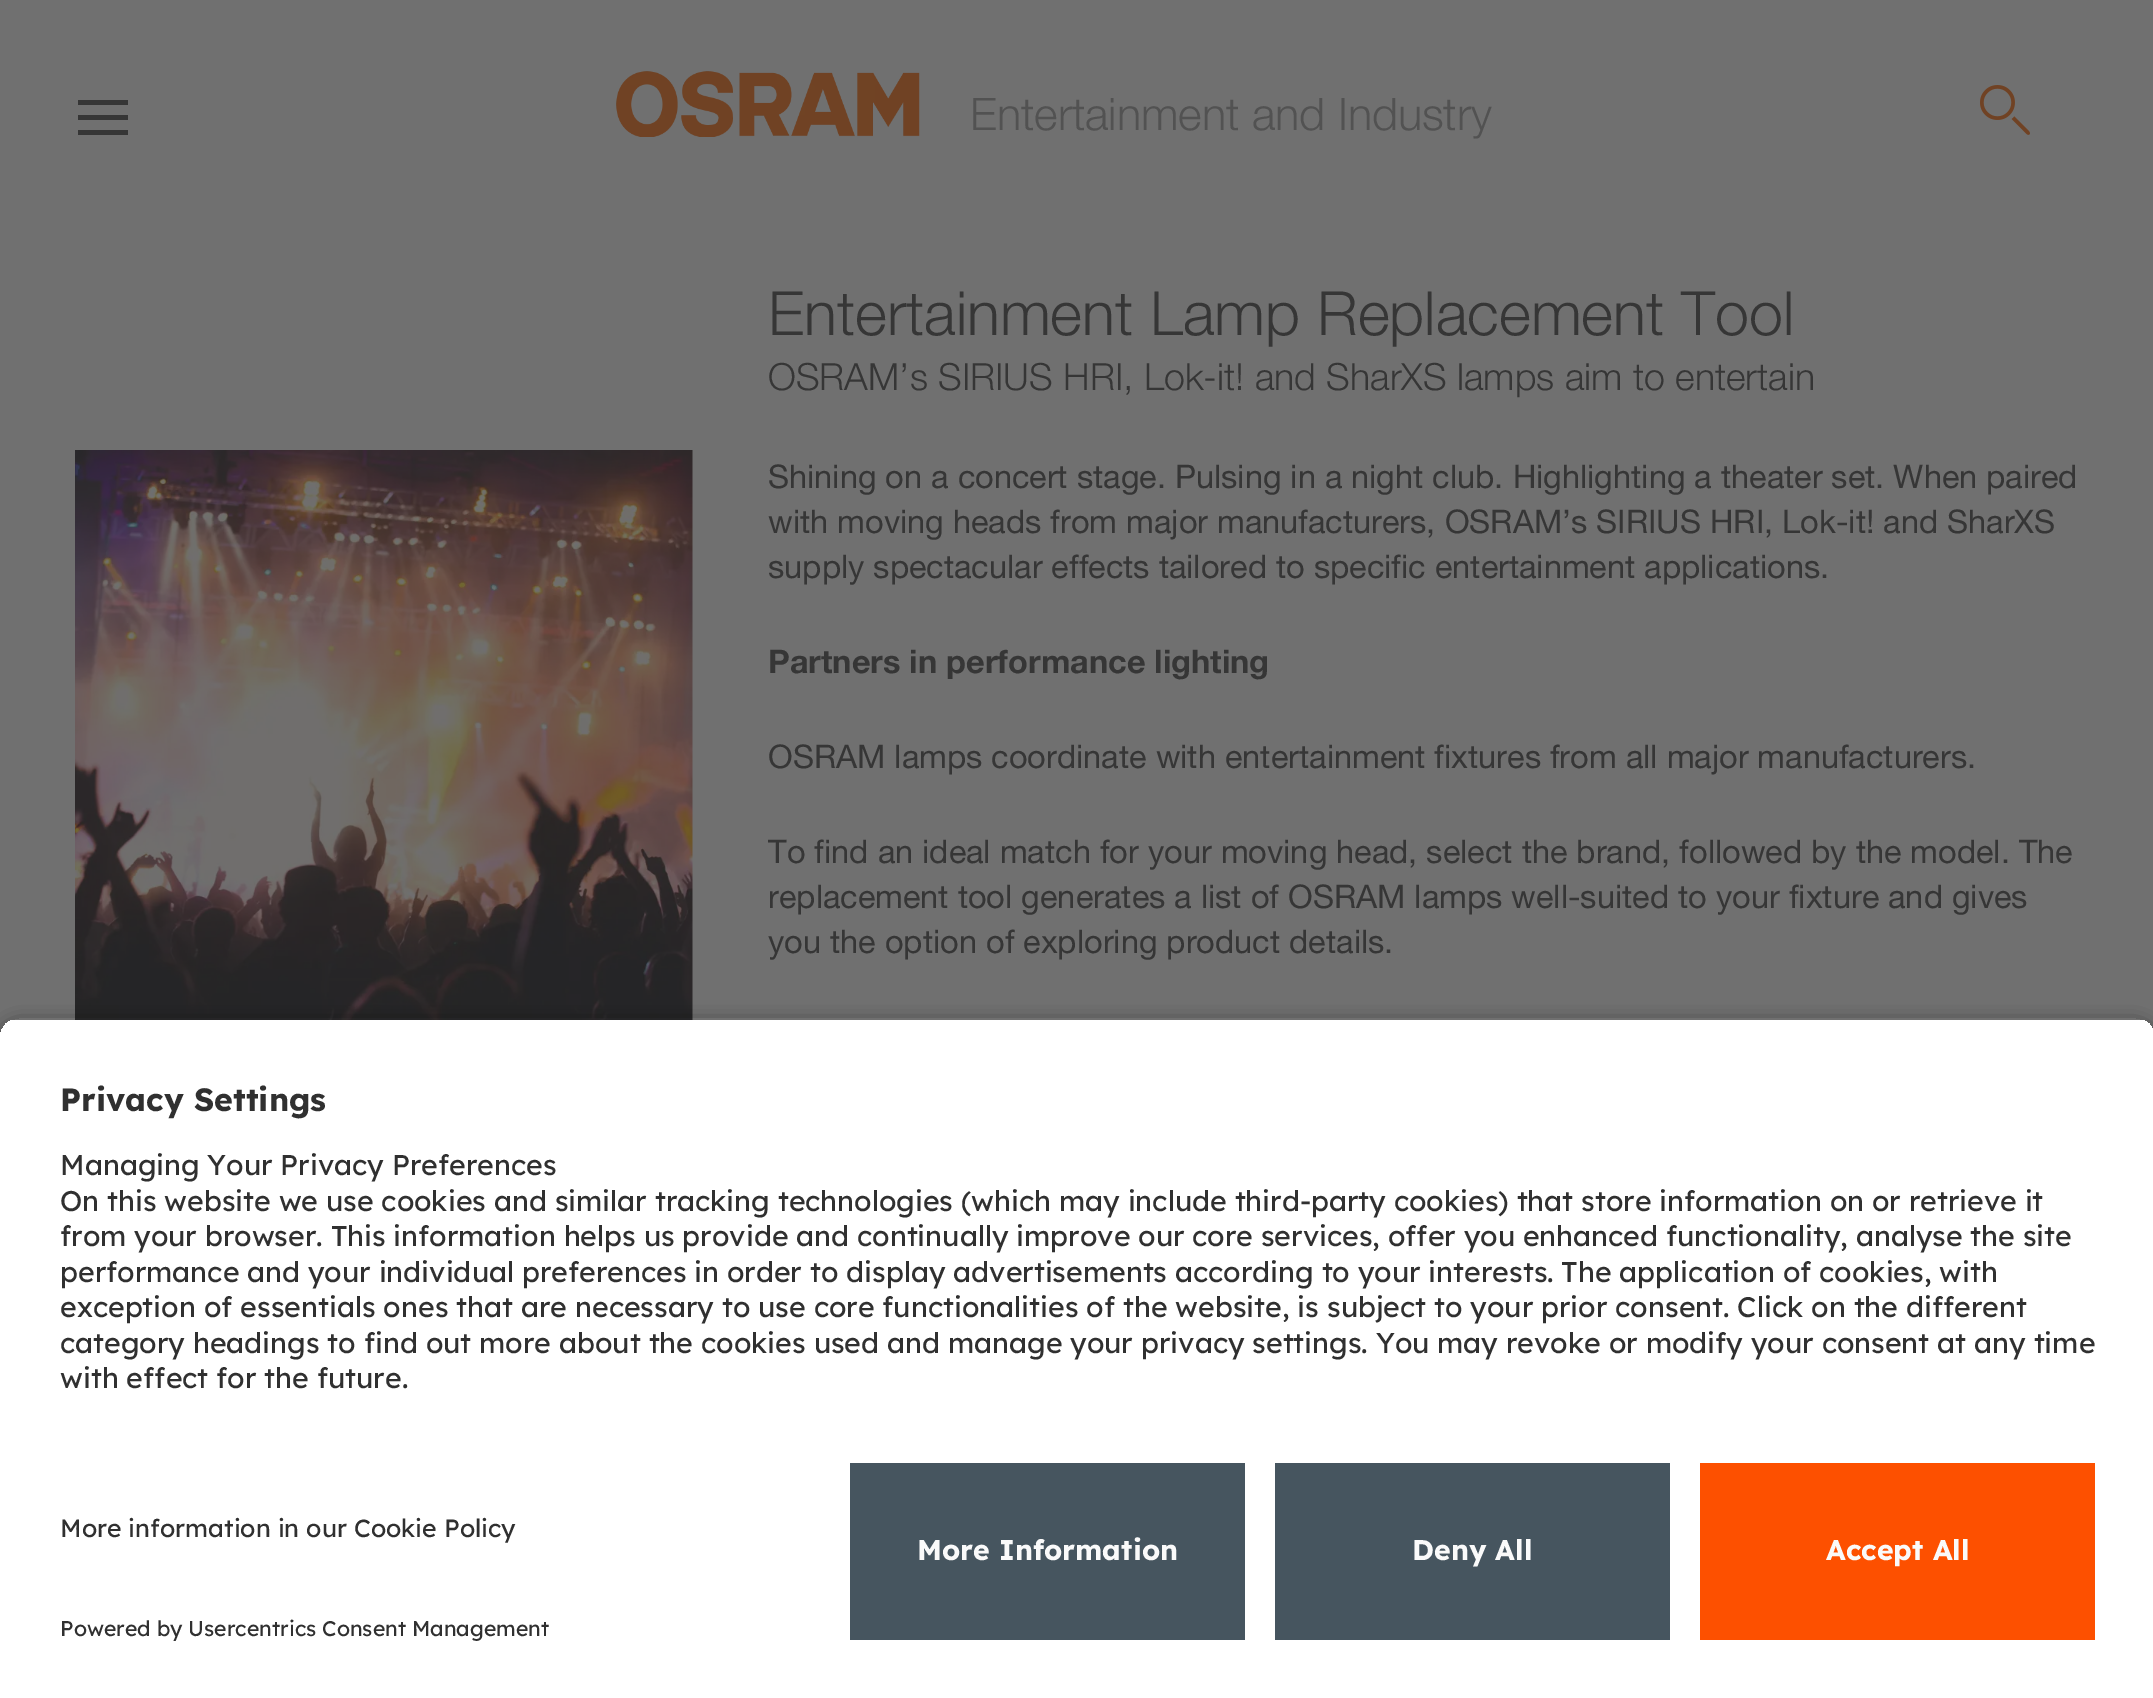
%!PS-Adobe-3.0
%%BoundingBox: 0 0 2153 1698
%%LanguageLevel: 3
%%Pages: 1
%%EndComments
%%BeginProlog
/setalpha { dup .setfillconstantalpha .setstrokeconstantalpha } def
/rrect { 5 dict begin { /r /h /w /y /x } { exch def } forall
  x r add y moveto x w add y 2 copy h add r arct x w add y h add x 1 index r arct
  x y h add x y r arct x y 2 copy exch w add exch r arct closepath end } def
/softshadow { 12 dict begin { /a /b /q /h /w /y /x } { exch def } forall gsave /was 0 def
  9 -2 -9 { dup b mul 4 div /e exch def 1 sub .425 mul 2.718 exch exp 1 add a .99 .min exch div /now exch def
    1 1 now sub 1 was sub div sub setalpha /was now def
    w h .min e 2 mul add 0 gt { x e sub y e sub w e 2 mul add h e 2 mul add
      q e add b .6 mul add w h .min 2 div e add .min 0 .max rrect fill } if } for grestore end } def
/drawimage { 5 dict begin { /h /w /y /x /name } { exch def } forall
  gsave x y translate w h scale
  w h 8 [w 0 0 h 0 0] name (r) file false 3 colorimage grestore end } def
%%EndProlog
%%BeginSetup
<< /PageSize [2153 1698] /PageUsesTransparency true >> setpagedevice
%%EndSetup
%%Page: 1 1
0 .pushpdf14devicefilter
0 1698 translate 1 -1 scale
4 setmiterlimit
0.439 setgray
0 0 2153 1698 rectfill
0.212 setgray
newpath 78 100 moveto 128 100 lineto 128 105 lineto 78 105 lineto closepath 78 115 moveto 128 115 lineto 128 120 lineto 78 120 lineto closepath 78 130 moveto 128 130 lineto 128 135 lineto 78 135 lineto closepath fill
(images/1.raw) 616 71 304 66 drawimage
(images/2.raw) 1980 85 50 50 drawimage
(images/3.raw) 75 450 618 570 drawimage
gsave
newpath 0 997 moveto 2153 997 lineto 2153 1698 lineto 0 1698 lineto closepath 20 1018 moveto 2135 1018 lineto 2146 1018 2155 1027 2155 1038 curveto 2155 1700 lineto 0 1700 lineto 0 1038 lineto 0 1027 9 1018 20 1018 curveto closepath eoclip newpath
0 setgray
0 1025 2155 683 20 9 0.8 softshadow
grestore
gsave
newpath 20 1018 moveto 2135 1018 lineto 2146 1018 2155 1027 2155 1038 curveto 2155 1443 lineto 0 1443 lineto 0 1038 lineto 0 1027 9 1018 20 1018 curveto closepath clip newpath
1 setgray
0 1020 2153 423 rectfill
grestore
1 setgray
0 1443 2153 255 rectfill
0.275 0.333 0.373 setrgbcolor
850 1463 395 177 rectfill
1275 1463 395 177 rectfill
0.992 0.314 0 setrgbcolor
1700 1463 395 177 rectfill
/HelveticaNeue-Light [45 0 0 -45 0 0] selectfont
0.322 setgray
970 130 moveto (Entertainment and Industry) show
/HelveticaNeue-Light [61 0 0 -61 0 0] selectfont
0.212 setgray
768 335 moveto (Entertainment Lamp Replacement Tool) show
/HelveticaNeue-Light [37.5 0 0 -37.5 0 0] selectfont
768 390 moveto (OSRAM’s SIRIUS HRI, Lok-it! and SharXS lamps aim to entertain) show
/HelveticaNeue-Regular [32.5 0 0 -32.5 0 0] selectfont
768 488 moveto (Shining on a concert stage. Pulsing in a night club. Highlighting a theater set. When paired) show
768 533 moveto (with moving heads from major manufacturers, OSRAM’s SIRIUS HRI, Lok-it! and SharXS) show
768 578 moveto (supply spectacular effects tailored to specific entertainment applications.) show
/HelveticaNeue-Bold [32.5 0 0 -32.5 0 0] selectfont
768 673 moveto (Partners in performance lighting) show
/HelveticaNeue-Regular [32.5 0 0 -32.5 0 0] selectfont
768 768 moveto (OSRAM lamps coordinate with entertainment fixtures from all major manufacturers.) show
768 863 moveto (To find an ideal match for your moving head, select the brand, followed by the model. The) show
768 908 moveto (replacement tool generates a list of OSRAM lamps well-suited to your fixture and gives) show
768 953 moveto (you the option of exploring product details.) show
/Lexend-Bold [32 0 0 -32 0 0] selectfont
0.188 setgray
60 1111 moveto (Privacy Settings) show
/Lexend-Regular [28.45 0 0 -28.45 0 0] selectfont
60 1175 moveto (Managing Your Privacy Preferences) show
60 1211 moveto -0.1 0 32 (On this website we use cookies and similar tracking technologies \(which may include third-party cookies\) that store information on or retrieve it) widthshow
60 1246 moveto -0.1 0 32 (from your browser. This information helps us provide and continually improve our core services, offer you enhanced functionality, analyse the site) widthshow
60 1282 moveto -0.1 0 32 (performance and your individual preferences in order to display advertisements according to your interests. The application of cookies, with) widthshow
60 1317 moveto (exception of essentials ones that are necessary to use core functionalities of the website, is subject to your prior consent. Click on the different) show
60 1353 moveto (category headings to find out more about the cookies used and manage your privacy settings. You may revoke or modify your consent at any time) show
60 1388 moveto (with effect for the future.) show
/Lexend-Regular [24.9 0 0 -24.9 0 0] selectfont
60 1537 moveto (More information in our Cookie Policy) show
/Lexend-Regular [21.3 0 0 -21.3 0 0] selectfont
60 1636 moveto (Powered by Usercentrics Consent Management) show
/Lexend-Bold [28.45 0 0 -28.45 0 0] selectfont
0.98 setgray
917 1560 moveto (More Information) show
1412 1560 moveto (Deny All) show
1826 1560 moveto (Accept All) show
.poppdf14devicefilter showpage
%%EOF
